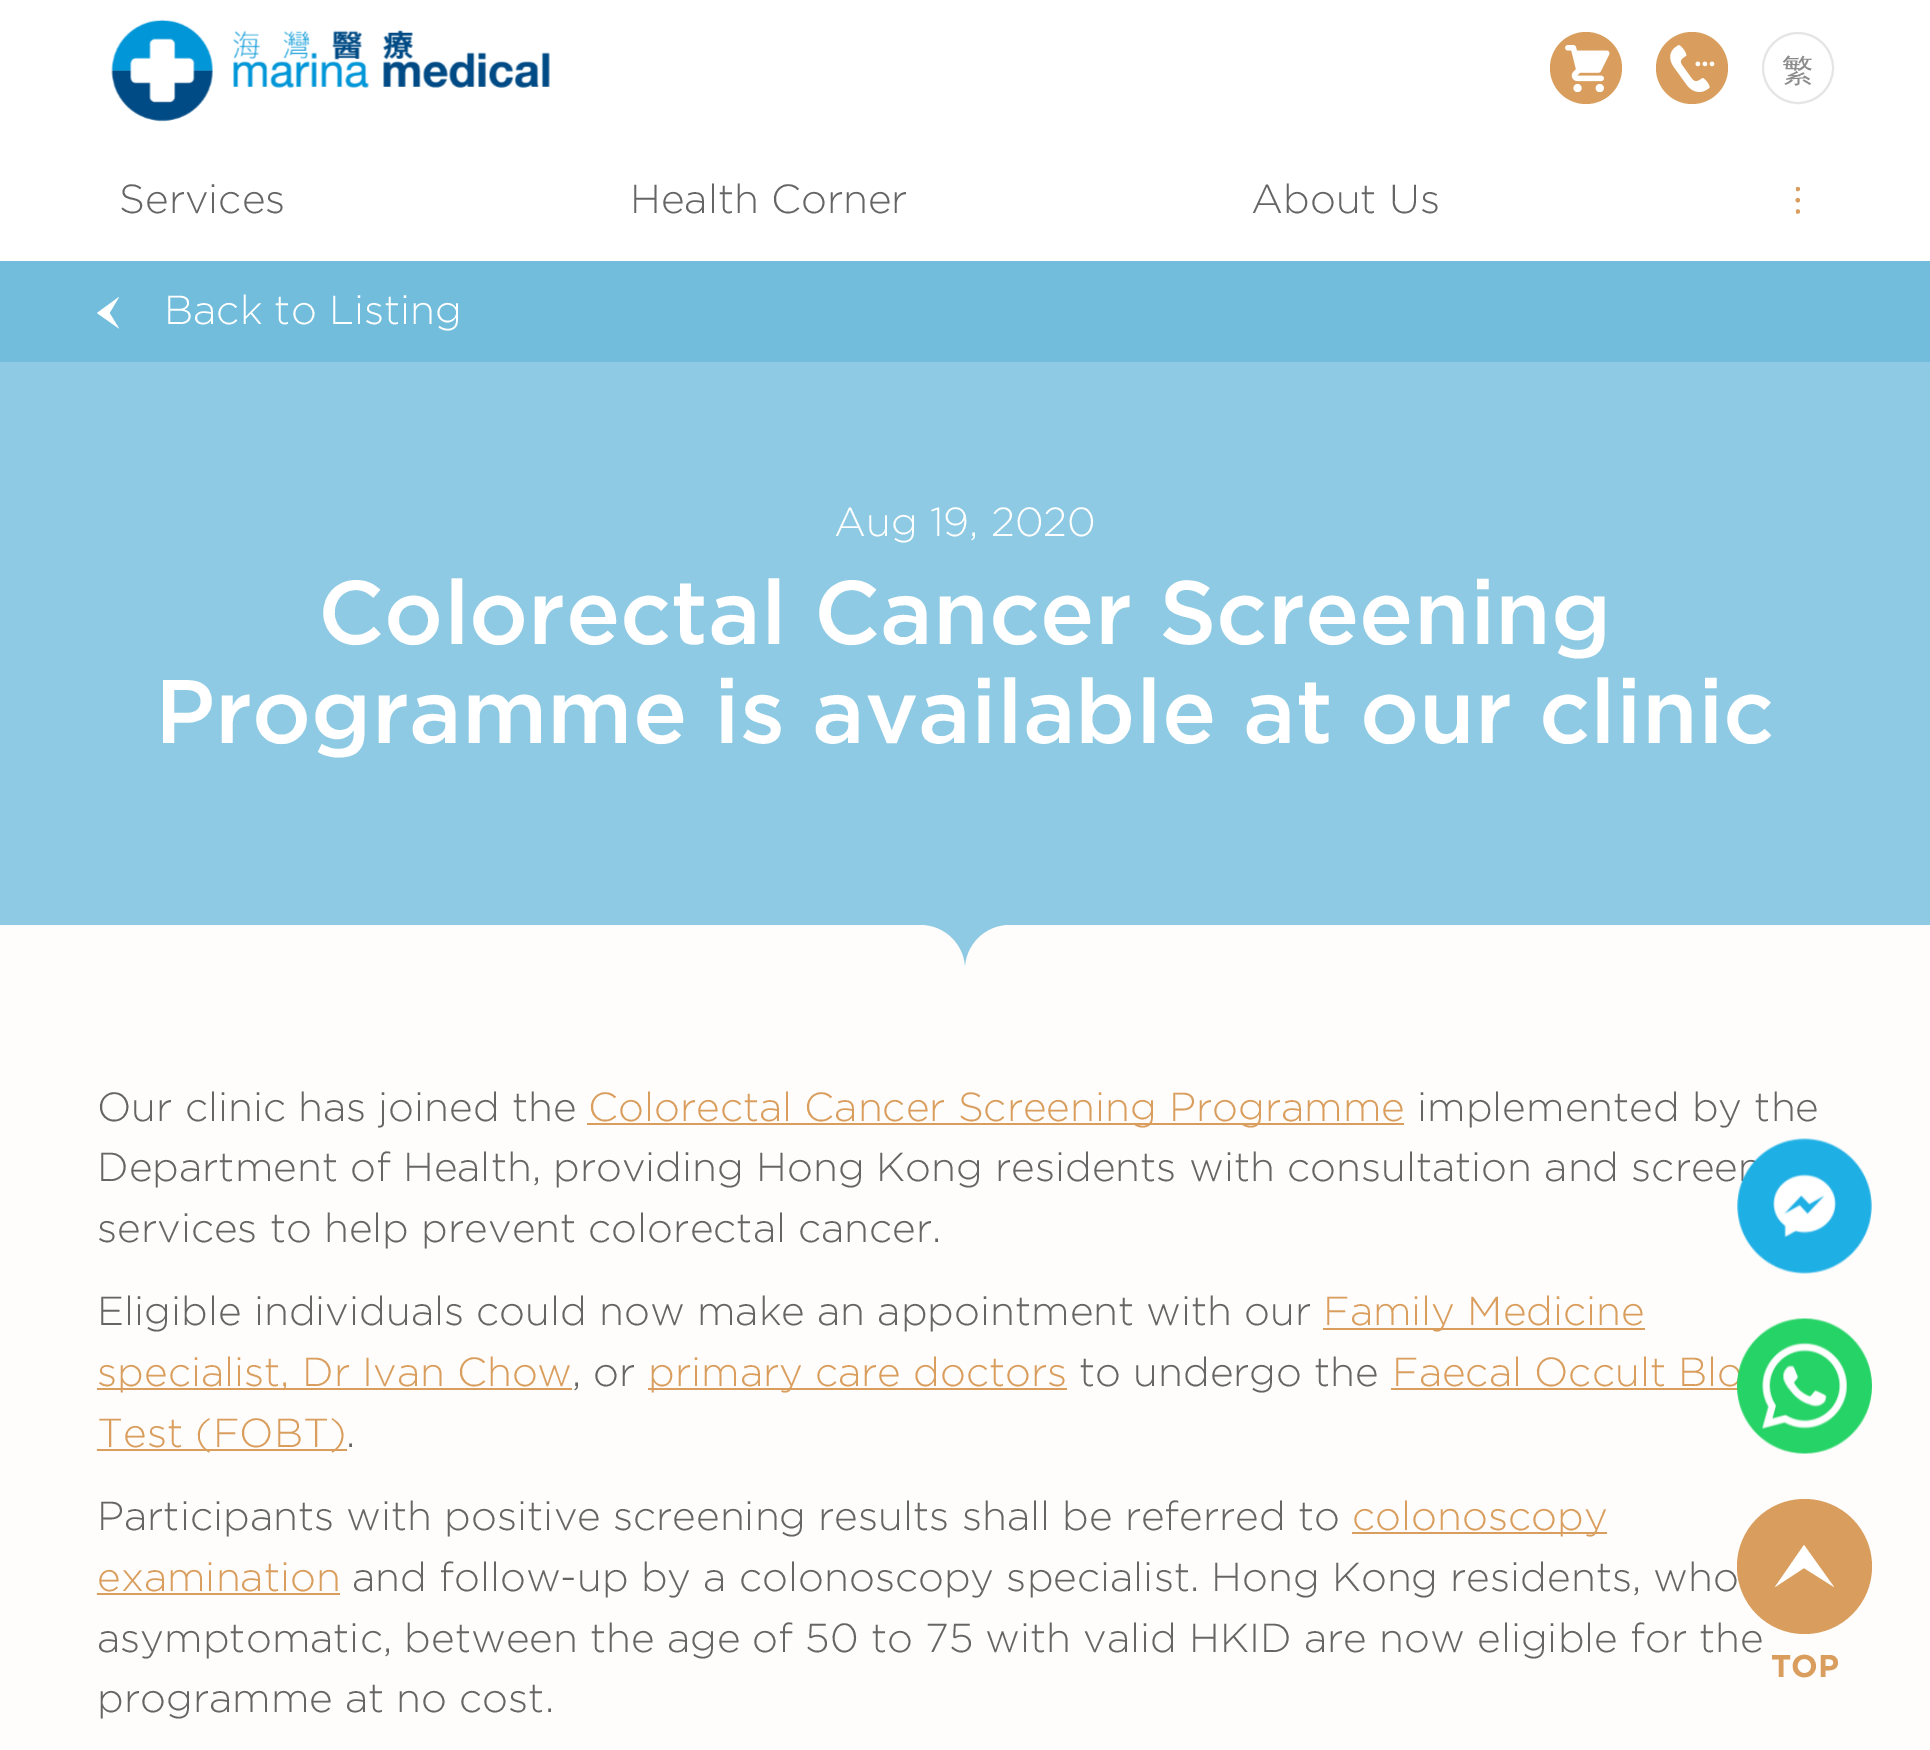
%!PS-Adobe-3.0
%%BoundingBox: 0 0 1930 1750
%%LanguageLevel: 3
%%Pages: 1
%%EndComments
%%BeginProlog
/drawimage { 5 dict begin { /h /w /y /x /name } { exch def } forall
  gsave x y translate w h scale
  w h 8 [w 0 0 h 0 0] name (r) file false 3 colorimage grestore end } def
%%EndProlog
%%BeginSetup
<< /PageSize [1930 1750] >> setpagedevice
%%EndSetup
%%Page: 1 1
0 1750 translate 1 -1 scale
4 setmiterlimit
1 0.992 0.984 setrgbcolor
0 0 1930 1750 rectfill
1 setgray
0 0 1930 261 rectfill
(images/1.raw) 111 19 439 103 drawimage
0.851 0.62 0.369 setrgbcolor
newpath 1586 68 36 0 360 arc closepath fill
(images/2.raw) 1565 45 45 47 drawimage
newpath 1692 68 36 0 360 arc closepath fill
(images/3.raw) 1670 45 45 47 drawimage
0.898 setgray
2 setlinewidth
newpath 1798 68 35 0 360 arc closepath stroke
gsave
1796 187 5 27 rectclip
0.851 0.62 0.369 setrgbcolor
newpath 1797.8 189 2.2 0 360 arc closepath fill
grestore
0.851 0.62 0.369 setrgbcolor
newpath 1797.8 200.2 2.2 0 360 arc closepath fill
gsave
1796 187 5 27 rectclip
newpath 1797.8 211.5 2.2 0 360 arc closepath fill
grestore
0.451 0.741 0.863 setrgbcolor
0 261 1930 101 rectfill
1 setgray
newpath 109.5 313 moveto 119 328.5 lineto 97 313 lineto 119 297 lineto closepath eofill
0.557 0.792 0.89 setrgbcolor
0 362 1930 606 rectfill
1 0.992 0.984 setrgbcolor
newpath 0 925 moveto 920 925 lineto 945 925 965 945 965 970 curveto 0 970 lineto closepath fill
newpath 1010 925 moveto 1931 925 lineto 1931 970 lineto 965 970 lineto 965 945 985 925 1010 925 curveto closepath fill
0.851 0.62 0.369 setrgbcolor
587 1123 817 2 rectfill
1323 1328 322 2 rectfill
97 1388 475 2 rectfill
648 1388 419 2 rectfill
1391 1388 348 2 rectfill
97 1449 250 2 rectfill
1352 1532 255 2 rectfill
97 1593 243 2 rectfill
/WenQuanYiZenHei-Medium [31.5 0 0 -31.5 0 0] selectfont
0.549 setgray
1782 81 moveto (繁) show
/Gotham-Light [40.5 0 0 -40.5 0 0] selectfont
0.396 setgray
119 213 moveto (Services) show
630 213 moveto (Health Corner) show
1251 213 moveto (About Us) show
1 setgray
164 324 moveto (Back to Listing) show
834 536 moveto (Aug 19, 2020) show
/Gotham-Medium [90 0 0 -90 0 0] selectfont
318 644 moveto (Colorectal Cancer Screening) show
155 743 moveto (Programme is available at our clinic) show
/Gotham-Light [40.5 0 0 -40.5 0 0] selectfont
0.396 setgray
97 1121 moveto (Our clinic has joined the) show
0.851 0.62 0.369 setrgbcolor
588 1121 moveto (Colorectal Cancer Screening Programme) show
0.396 setgray
1417 1121 moveto (implemented by the) show
97 1181 moveto (Department of Health, providing Hong Kong residents with consultation and screen) show
97 1242 moveto (services to help prevent colorectal cancer.) show
97 1325 moveto (Eligible individuals could now make an appointment with our) show
0.851 0.62 0.369 setrgbcolor
1323 1325 moveto (Family Medicine) show
97 1386 moveto (specialist, Dr Ivan Chow) show
0.396 setgray
572 1386 moveto (, or) show
0.851 0.62 0.369 setrgbcolor
648 1386 moveto (primary care doctors) show
0.396 setgray
1079 1386 moveto (to undergo the) show
0.851 0.62 0.369 setrgbcolor
1392 1386 moveto (Faecal Occult Blo) show
97 1447 moveto (Test \(FOBT\)) show
0.396 setgray
346 1447 moveto (.) show
97 1530 moveto (Participants with positive screening results shall be referred to) show
0.851 0.62 0.369 setrgbcolor
1352 1530 moveto (colonoscopy) show
97 1591 moveto (examination) show
0.396 setgray
352 1591 moveto (and follow-up by a colonoscopy specialist. Hong Kong residents, who) show
97 1652 moveto (asymptomatic, between the age of 50 to 75 with valid HKID are now eligible for the) show
97 1712 moveto (programme at no cost.) show
(images/4.raw) 1737 1138 135 136 drawimage
(images/5.raw) 1737 1318 135 136 drawimage
0.851 0.62 0.369 setrgbcolor
newpath 1804.5 1566.5 67.5 0 360 arc closepath fill
1 setgray
newpath 1804 1568 moveto 1775 1587 lineto 1804 1545 lineto 1834 1587 lineto closepath eofill
/Gotham-Bold [31.5 0 0 -31.5 0 0] selectfont
0.851 0.62 0.369 setrgbcolor
1771 1677 moveto (TOP) show
showpage
%%EOF
